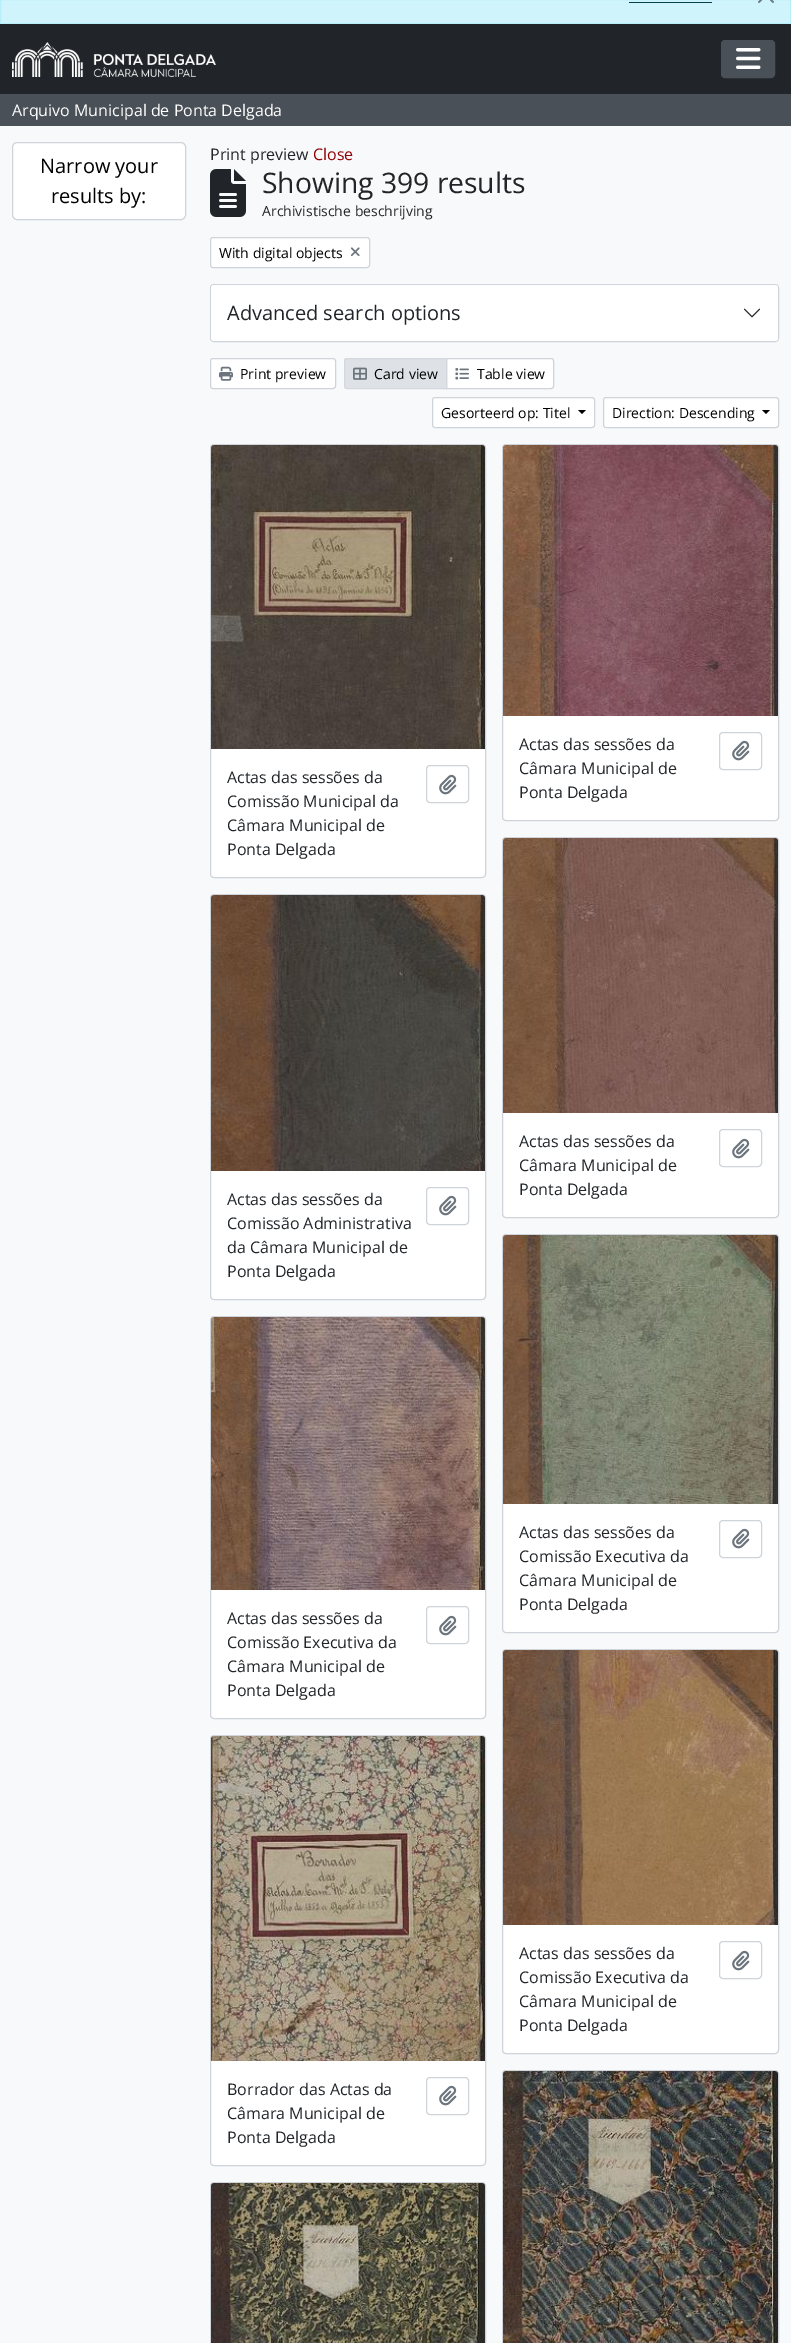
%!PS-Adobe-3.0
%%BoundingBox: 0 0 791 2343
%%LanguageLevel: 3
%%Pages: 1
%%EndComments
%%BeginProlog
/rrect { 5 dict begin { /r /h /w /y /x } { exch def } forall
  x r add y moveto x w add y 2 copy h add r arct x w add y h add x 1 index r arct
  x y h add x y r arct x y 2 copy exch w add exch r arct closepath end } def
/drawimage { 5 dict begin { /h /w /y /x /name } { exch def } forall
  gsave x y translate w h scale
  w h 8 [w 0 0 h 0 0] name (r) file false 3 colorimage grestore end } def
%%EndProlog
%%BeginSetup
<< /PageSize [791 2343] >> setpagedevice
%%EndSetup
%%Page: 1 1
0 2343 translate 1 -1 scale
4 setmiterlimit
0.973 0.976 0.98 setrgbcolor
0 0 791 2343 rectfill
0.812 0.957 0.988 setrgbcolor
newpath 0.5 -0.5 moveto 790.5 -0.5 lineto 790.5 23.5 lineto 0.5 23.5 lineto closepath gsave fill grestore
0.714 0.937 0.984 setrgbcolor
stroke
0.016 0.255 0.302 setrgbcolor
629 2 83 1 rectfill
(images/1.raw) 758 0 16 3 drawimage
0.129 0.145 0.161 setrgbcolor
0 24 791 70 rectfill
(images/2.raw) 12 42 204 35 drawimage
0.286 0.314 0.341 setrgbcolor
721.5 40.5 53 37 3.5 rrect gsave fill grestore
stroke
(images/3.raw) 736 48 25 21 drawimage
0 94 791 32 rectfill
1 setgray
12.5 142.5 173 77 4.5 rrect gsave fill grestore
0.808 0.831 0.855 setrgbcolor
stroke
(images/4.raw) 210 169 36 48 drawimage
1 setgray
210.5 237.5 159 30 2.5 rrect gsave fill grestore
0.808 0.831 0.855 setrgbcolor
stroke
(images/5.raw) 350 247 10 10 drawimage
210.5 284.5 568 57 3.5 rrect stroke
1 setgray
211 285 567 56 3 rrect fill
(images/6.raw) 743 308 18 10 drawimage
210.5 358.5 125 30 2.5 rrect gsave fill grestore
0.808 0.831 0.855 setrgbcolor
stroke
(images/7.raw) 219 366 14 15 drawimage
1 setgray
newpath 446.5 358.5 moveto 551 358.5 lineto 552.5 358.5 553.5 359.5 553.5 361 curveto 553.5 386 lineto 553.5 387.5 552.5 388.5 551 388.5 curveto 446.5 388.5 lineto closepath gsave fill grestore
0.808 0.831 0.855 setrgbcolor
stroke
0.871 0.886 0.902 setrgbcolor
newpath 347 358.5 moveto 446.5 358.5 lineto 446.5 388.5 lineto 347 388.5 lineto 345.5 388.5 344.5 387.5 344.5 386 curveto 344.5 361 lineto 344.5 359.5 345.5 358.5 347 358.5 curveto closepath gsave fill grestore
0.827 0.847 0.871 setrgbcolor
stroke
(images/8.raw) 353 367 14 13 drawimage
(images/9.raw) 455 368 14 12 drawimage
1 setgray
432.5 397.5 162 30 2.5 rrect gsave fill grestore
0.808 0.831 0.855 setrgbcolor
stroke
0 setgray
newpath 578 410 moveto 586 410 lineto 582 414 lineto closepath fill
1 setgray
603.5 397.5 175 30 2.5 rrect gsave fill grestore
0.808 0.831 0.855 setrgbcolor
stroke
0 setgray
newpath 762 410 moveto 770 410 lineto 766 414 lineto closepath fill
1 setgray
210.5 444.5 275 433 3.5 rrect gsave fill grestore
0.808 0.831 0.855 setrgbcolor
stroke
(images/10.raw) 211 445 274 304 drawimage
426.5 765.5 42 37 3.5 rrect stroke
(images/11.raw) 439 774 18 21 drawimage
1 setgray
502.5 444.5 276 376 3.5 rrect gsave fill grestore
0.808 0.831 0.855 setrgbcolor
stroke
(images/12.raw) 503 445 275 271 drawimage
719.5 732.5 42 37 3.5 rrect stroke
(images/11.raw) 732 740 18 21 drawimage
1 setgray
502.5 837.5 276 380 3.5 rrect gsave fill grestore
0.808 0.831 0.855 setrgbcolor
stroke
(images/13.raw) 503 838 275 275 drawimage
719.5 1129.5 42 37 3.5 rrect stroke
(images/11.raw) 732 1138 18 21 drawimage
1 setgray
210.5 894.5 275 405 3.5 rrect gsave fill grestore
0.808 0.831 0.855 setrgbcolor
stroke
(images/14.raw) 211 895 274 276 drawimage
426.5 1187.5 42 37 3.5 rrect stroke
(images/11.raw) 439 1195 18 21 drawimage
1 setgray
502.5 1234.5 276 398 3.5 rrect gsave fill grestore
0.808 0.831 0.855 setrgbcolor
stroke
(images/15.raw) 503 1235 275 269 drawimage
719.5 1520.5 42 37 3.5 rrect stroke
(images/11.raw) 732 1528 18 21 drawimage
1 setgray
210.5 1316.5 275 402 3.5 rrect gsave fill grestore
0.808 0.831 0.855 setrgbcolor
stroke
(images/16.raw) 211 1317 274 273 drawimage
426.5 1606.5 42 37 3.5 rrect stroke
(images/11.raw) 439 1615 18 21 drawimage
1 setgray
502.5 1649.5 276 404 3.5 rrect gsave fill grestore
0.808 0.831 0.855 setrgbcolor
stroke
(images/17.raw) 503 1650 275 275 drawimage
719.5 1941.5 42 37 3.5 rrect stroke
(images/11.raw) 732 1950 18 21 drawimage
1 setgray
210.5 1735.5 275 430 3.5 rrect gsave fill grestore
0.808 0.831 0.855 setrgbcolor
stroke
(images/18.raw) 211 1736 274 325 drawimage
426.5 2077.5 42 37 3.5 rrect stroke
(images/11.raw) 439 2085 18 21 drawimage
502.5 2070.5 276 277 3.5 rrect stroke
(images/19.raw) 503 2071 275 272 drawimage
210.5 2182.5 275 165 3.5 rrect stroke
(images/20.raw) 211 2183 274 160 drawimage
/OpenSans-Regular [16 0 0 -16 0 0] selectfont
1 setgray
12 116 moveto (Arquivo Municipal de Ponta Delgada) show
/OpenSans-Regular [20 0 0 -20 0 0] selectfont
0 setgray
40 173 moveto (Narrow your) show
51 203 moveto (results by:) show
/OpenSans-Regular [16 0 0 -16 0 0] selectfont
0.129 0.145 0.161 setrgbcolor
210 160 moveto (Print preview) show
0.565 0 0.02 setrgbcolor
313 160 moveto (Close) show
/OpenSans-Regular [28.25 0 0 -28.25 0 0] selectfont
0.129 0.145 0.161 setrgbcolor
262 193 moveto (Showing 399 results) show
/OpenSans-Regular [14 0 0 -14 0 0] selectfont
262 216 moveto (Archivistische beschrijving) show
0 setgray
219 258 moveto (With digital objects) show
/OpenSans-Regular [20 0 0 -20 0 0] selectfont
0.129 0.145 0.161 setrgbcolor
227 320 moveto (Advanced search options) show
/OpenSans-Regular [14 0 0 -14 0 0] selectfont
0 setgray
240 379 moveto (Print preview) show
374 379 moveto (Card view) show
477 379 moveto (Table view) show
441 418 moveto (Gesorteerd op: Titel) show
612 418 moveto (Direction: Descending) show
/OpenSans-Regular [16 0 0 -16 0 0] selectfont
0.129 0.145 0.161 setrgbcolor
227 783 moveto (Actas das sessões da) show
227 807 moveto (Comissão Municipal da) show
227 831 moveto (Câmara Municipal de) show
227 855 moveto (Ponta Delgada) show
519 750 moveto (Actas das sessões da) show
519 774 moveto (Câmara Municipal de) show
519 798 moveto (Ponta Delgada) show
519 1147 moveto (Actas das sessões da) show
519 1171 moveto (Câmara Municipal de) show
519 1195 moveto (Ponta Delgada) show
227 1205 moveto (Actas das sessões da) show
227 1229 moveto (Comissão Administrativa) show
227 1253 moveto (da Câmara Municipal de) show
227 1277 moveto (Ponta Delgada) show
519 1538 moveto (Actas das sessões da) show
519 1562 moveto (Comissão Executiva da) show
519 1586 moveto (Câmara Municipal de) show
519 1610 moveto (Ponta Delgada) show
227 1624 moveto (Actas das sessões da) show
227 1648 moveto (Comissão Executiva da) show
227 1672 moveto (Câmara Municipal de) show
227 1696 moveto (Ponta Delgada) show
519 1959 moveto (Actas das sessões da) show
519 1983 moveto (Comissão Executiva da) show
519 2007 moveto (Câmara Municipal de) show
519 2031 moveto (Ponta Delgada) show
227 2095 moveto (Borrador das Actas da) show
227 2119 moveto (Câmara Municipal de) show
227 2143 moveto (Ponta Delgada) show
showpage
%%EOF
